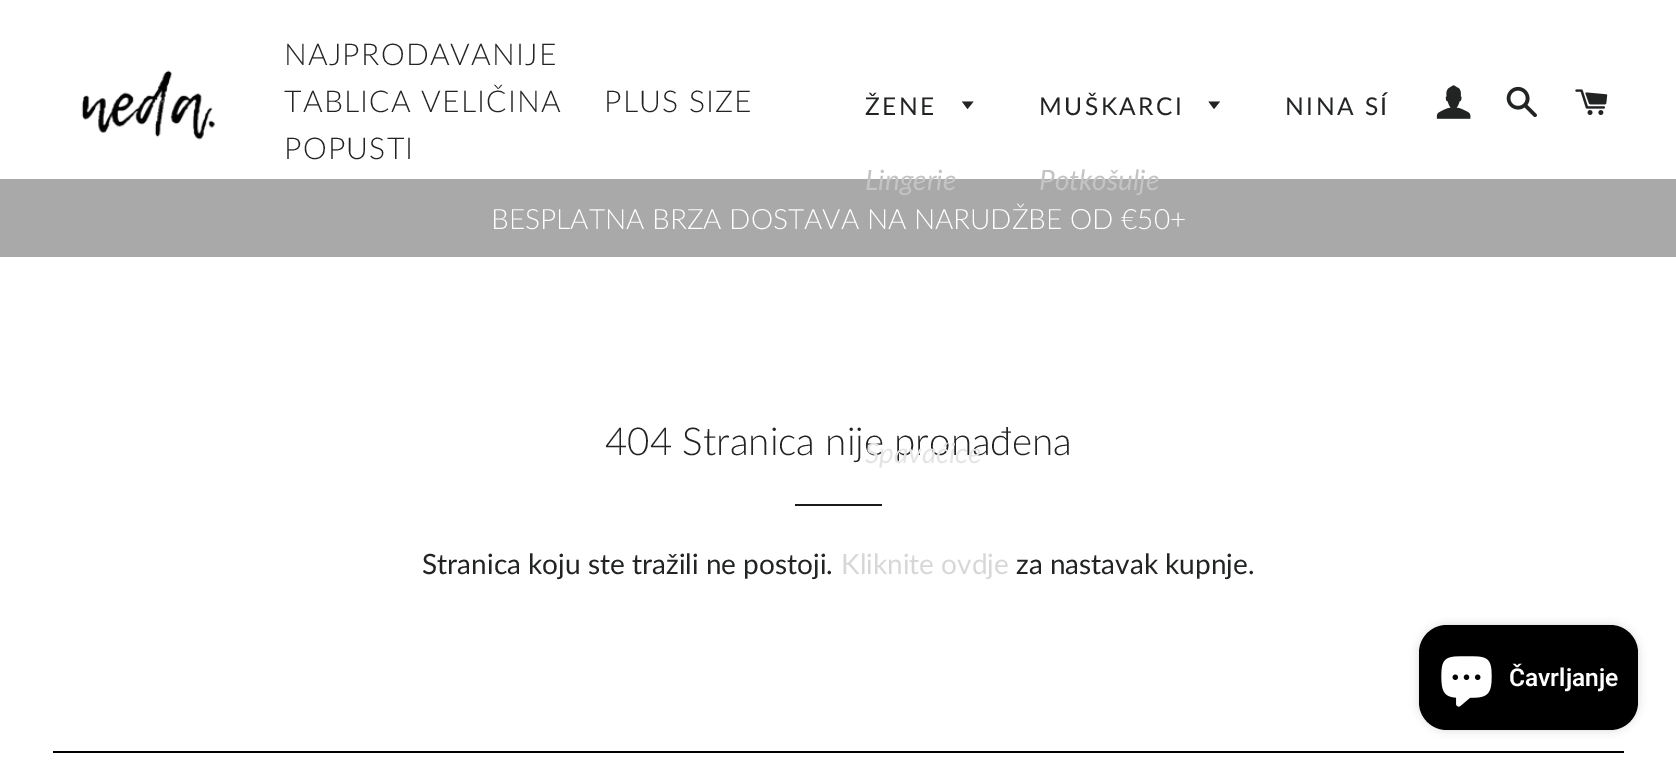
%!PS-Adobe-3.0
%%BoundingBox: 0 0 1676 765
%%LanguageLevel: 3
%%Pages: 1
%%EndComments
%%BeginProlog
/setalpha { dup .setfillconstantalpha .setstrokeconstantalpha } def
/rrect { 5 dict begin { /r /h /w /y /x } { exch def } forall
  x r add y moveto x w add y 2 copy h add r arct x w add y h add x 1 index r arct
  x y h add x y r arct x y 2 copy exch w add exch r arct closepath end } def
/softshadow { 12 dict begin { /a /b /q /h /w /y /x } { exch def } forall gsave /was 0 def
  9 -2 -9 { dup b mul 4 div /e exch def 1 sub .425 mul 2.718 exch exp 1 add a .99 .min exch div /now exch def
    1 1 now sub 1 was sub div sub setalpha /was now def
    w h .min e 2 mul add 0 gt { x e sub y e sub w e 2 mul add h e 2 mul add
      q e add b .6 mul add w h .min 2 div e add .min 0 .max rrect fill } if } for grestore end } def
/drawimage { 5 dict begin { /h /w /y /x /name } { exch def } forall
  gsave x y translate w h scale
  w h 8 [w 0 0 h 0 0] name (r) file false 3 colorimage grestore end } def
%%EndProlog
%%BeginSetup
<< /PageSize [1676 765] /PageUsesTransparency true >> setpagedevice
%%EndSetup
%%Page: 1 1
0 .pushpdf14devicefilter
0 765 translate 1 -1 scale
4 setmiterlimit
1 setgray
0 0 1676 765 rectfill
(images/1.raw) 81 70 134 70 drawimage
0.133 0.137 0.137 setrgbcolor
newpath 962 101.5 moveto 967.5 109 lineto 973.5 101.5 lineto closepath fill
newpath 1208.5 101.5 moveto 1214 109 lineto 1220 101.5 lineto closepath fill
(images/2.raw) 1436 85 35 34 drawimage
(images/3.raw) 1506 86 31 31 drawimage
(images/4.raw) 1575 89 33 26 drawimage
0.663 setgray
0 179 1676 78 rectfill
0.11 0.106 0.106 setrgbcolor
795 504 87 2 rectfill
0 setgray
53 751 1571 2 rectfill
1419 625 219 105 28 4.5 0.15 softshadow
1419 625 219 105 28 rrect fill
(images/5.raw) 1441 656 51 51 drawimage
/Lato-Light [30 0 0 -30 0 0] selectfont
0.133 0.137 0.137 setrgbcolor
284 65 moveto 1.25 0 (NAJPRODAVANIJE) ashow
284 112 moveto 1.25 0 (TABLICA VELIČINA) ashow
604 112 moveto 1.25 0 (PLUS SIZE) ashow
284 159 moveto 1.25 0 (POPUSTI) ashow
/Lato-Regular [24.5 0 0 -24.5 0 0] selectfont
865 115 moveto 2.5 0 (ŽENE) ashow
/Lato-Italic [28 0 0 -28 0 0] selectfont
0.769 setgray
865 190 moveto (Lingerie) show
/Lato-Regular [24.5 0 0 -24.5 0 0] selectfont
0.133 0.137 0.137 setrgbcolor
1039 115 moveto 2.5 0 (MUŠKARCI) ashow
/Lato-Italic [28 0 0 -28 0 0] selectfont
0.769 setgray
1039 190 moveto (Potkošulje) show
/Lato-Regular [24.5 0 0 -24.5 0 0] selectfont
0.133 0.137 0.137 setrgbcolor
1285 115 moveto 2.5 0 (NINA SÍ) ashow
/Lato-Light [28 0 0 -28 0 0] selectfont
1 setgray
491 229 moveto (BESPLATNA BRZA DOSTAVA NA NARUDŽBE OD €50+) show
/Lato-Light [38.5 0 0 -38.5 0 0] selectfont
0.133 0.137 0.137 setrgbcolor
605 455 moveto (404 Stranica nije pronađena) show
/Lato-Italic [28 0 0 -28 0 0] selectfont
0.894 setgray
865 463 moveto (Spavaćice) show
/Lato-Regular [28 0 0 -28 0 0] selectfont
0.133 0.137 0.137 setrgbcolor
422 574 moveto (Stranica koju ste tražili ne postoji.) show
0.843 setgray
841 574 moveto (Kliknite ovdje) show
0.133 0.137 0.137 setrgbcolor
1016 574 moveto (za nastavak kupnje.) show
/Roboto-SemiBold [24.5 0 0 -24.5 0 0] selectfont
1 setgray
1509 686 moveto (Čavrljanje) show
.poppdf14devicefilter showpage
%%EOF
